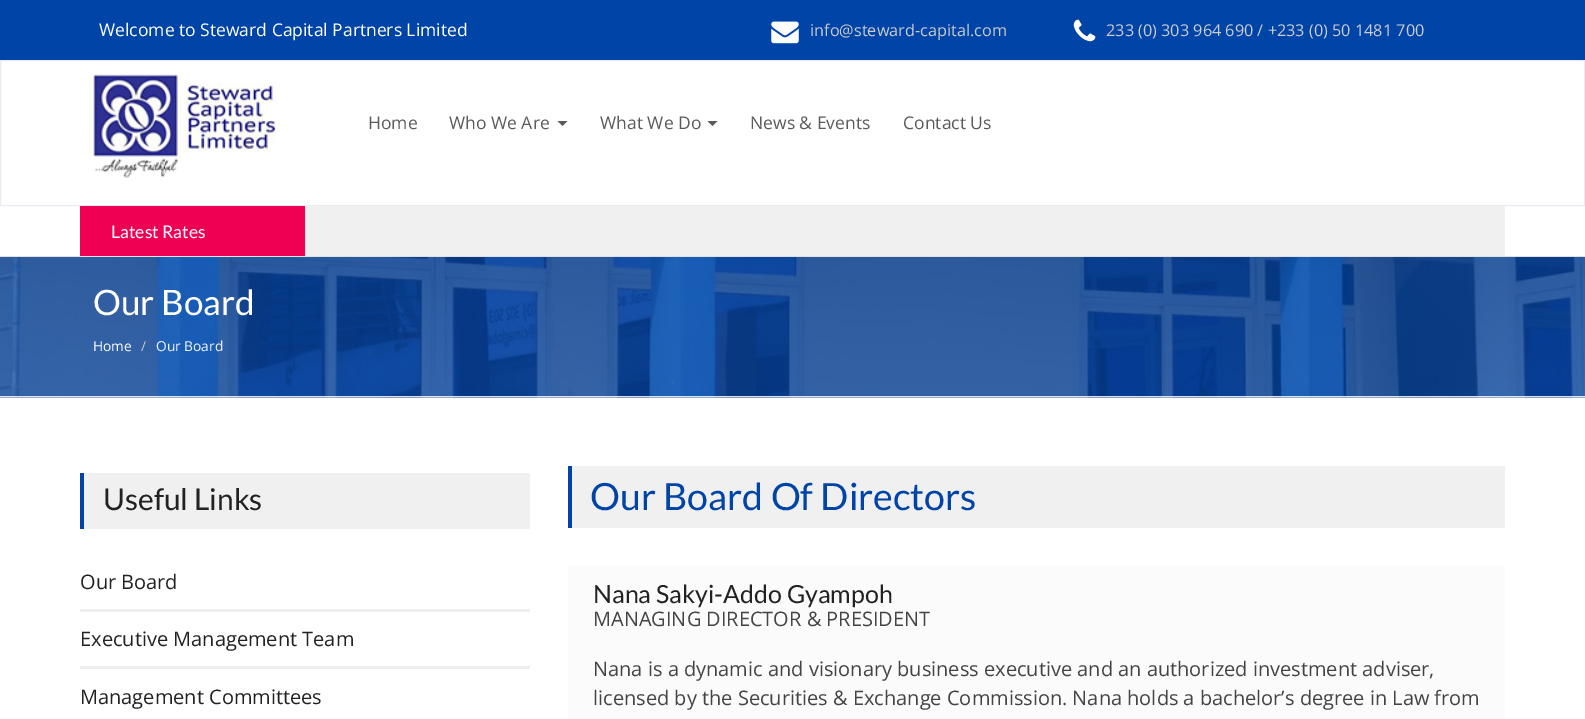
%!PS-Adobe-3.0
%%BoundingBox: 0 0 1585 719
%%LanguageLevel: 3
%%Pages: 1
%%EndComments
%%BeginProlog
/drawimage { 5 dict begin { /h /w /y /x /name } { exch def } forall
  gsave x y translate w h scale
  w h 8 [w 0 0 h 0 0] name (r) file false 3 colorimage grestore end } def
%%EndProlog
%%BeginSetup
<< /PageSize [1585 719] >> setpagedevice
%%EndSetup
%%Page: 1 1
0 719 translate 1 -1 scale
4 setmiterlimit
1 setgray
0 0 1585 719 rectfill
0 0.267 0.659 setrgbcolor
0 0 1585 60 rectfill
(images/1.raw) 771 21 28 23 drawimage
(images/2.raw) 1073 19 23 23 drawimage
0.918 0.922 0.953 setrgbcolor
0.5 60.5 1584 145 rectstroke
(images/3.raw) 89 74 188 104 drawimage
0.357 setgray
newpath 557.5 121 moveto 567.5 121 lineto 562.5 126 lineto closepath fill
newpath 707.5 121 moveto 717.5 121 lineto 712.5 126 lineto closepath fill
0.933 0 0.325 setrgbcolor
80 206 225 50 rectfill
0.941 setgray
305 206 1200 50 rectfill
(images/4.raw) 0 257 1585 141 drawimage
0.882 setgray
0 256 1585 1 rectfill
0 396 1585 1 rectfill
0.941 setgray
84 473 446 56 rectfill
0 0.267 0.659 setrgbcolor
80 473 4 56 rectfill
0.933 setgray
80 609 450 3 rectfill
80 666 450 3 rectfill
0.941 setgray
572 466 933 62 rectfill
0 0.267 0.659 setrgbcolor
568 466 4 62 rectfill
0.984 setgray
568 565 937 154 rectfill
/OpenSans-Regular [17.5 0 0 -17.5 0 0] selectfont
1 setgray
99 36 moveto (Welcome to Steward Capital Partners Limited) show
/OpenSans-Regular [16.25 0 0 -16.25 0 0] selectfont
0.8 setgray
810 36 moveto (info@steward-capital.com) show
1106 36 moveto (233 \(0\) 303 964 690 / +233 \(0\) 50 1481 700) show
/OpenSans-Regular [17.5 0 0 -17.5 0 0] selectfont
0.357 setgray
368 129 moveto (Home) show
449 129 moveto (Who We Are) show
600 129 moveto (What We Do) show
750 129 moveto (News & Events) show
903 129 moveto (Contact Us) show
/Lato-Regular [17.5 0 0 -17.5 0 0] selectfont
1 setgray
111 238 moveto (Latest Rates) show
/Lato-Regular [35 0 0 -35 0 0] selectfont
93 315 moveto (Our Board) show
/OpenSans-Regular [13.75 0 0 -13.75 0 0] selectfont
93 351 moveto (Home) show
0.8 setgray
141 351 moveto (/) show
0.957 0.961 0.969 setrgbcolor
156 351 moveto (Our Board) show
/Lato-Regular [30 0 0 -30 0 0] selectfont
0.133 setgray
103 510 moveto (Useful Links) show
/OpenSans-Regular [20 0 0 -20 0 0] selectfont
80 589 moveto (Our Board) show
80 646 moveto (Executive Management Team) show
80 704 moveto (Management Committees) show
/Lato-Regular [37.5 0 0 -37.5 0 0] selectfont
0 0.267 0.659 setrgbcolor
590 510 moveto (Our Board Of Directors) show
/Lato-Regular [25 0 0 -25 0 0] selectfont
0.133 setgray
593 603 moveto (Nana Sakyi-Addo Gyampoh) show
/OpenSans-Regular [20 0 0 -20 0 0] selectfont
0.267 setgray
593 626 moveto (MANAGING DIRECTOR & PRESIDENT) show
593 676 moveto (Nana is a dynamic and visionary business executive and an authorized investment adviser,) show
593 705 moveto (licensed by the Securities & Exchange Commission. Nana holds a bachelor’s degree in Law from) show
showpage
%%EOF
